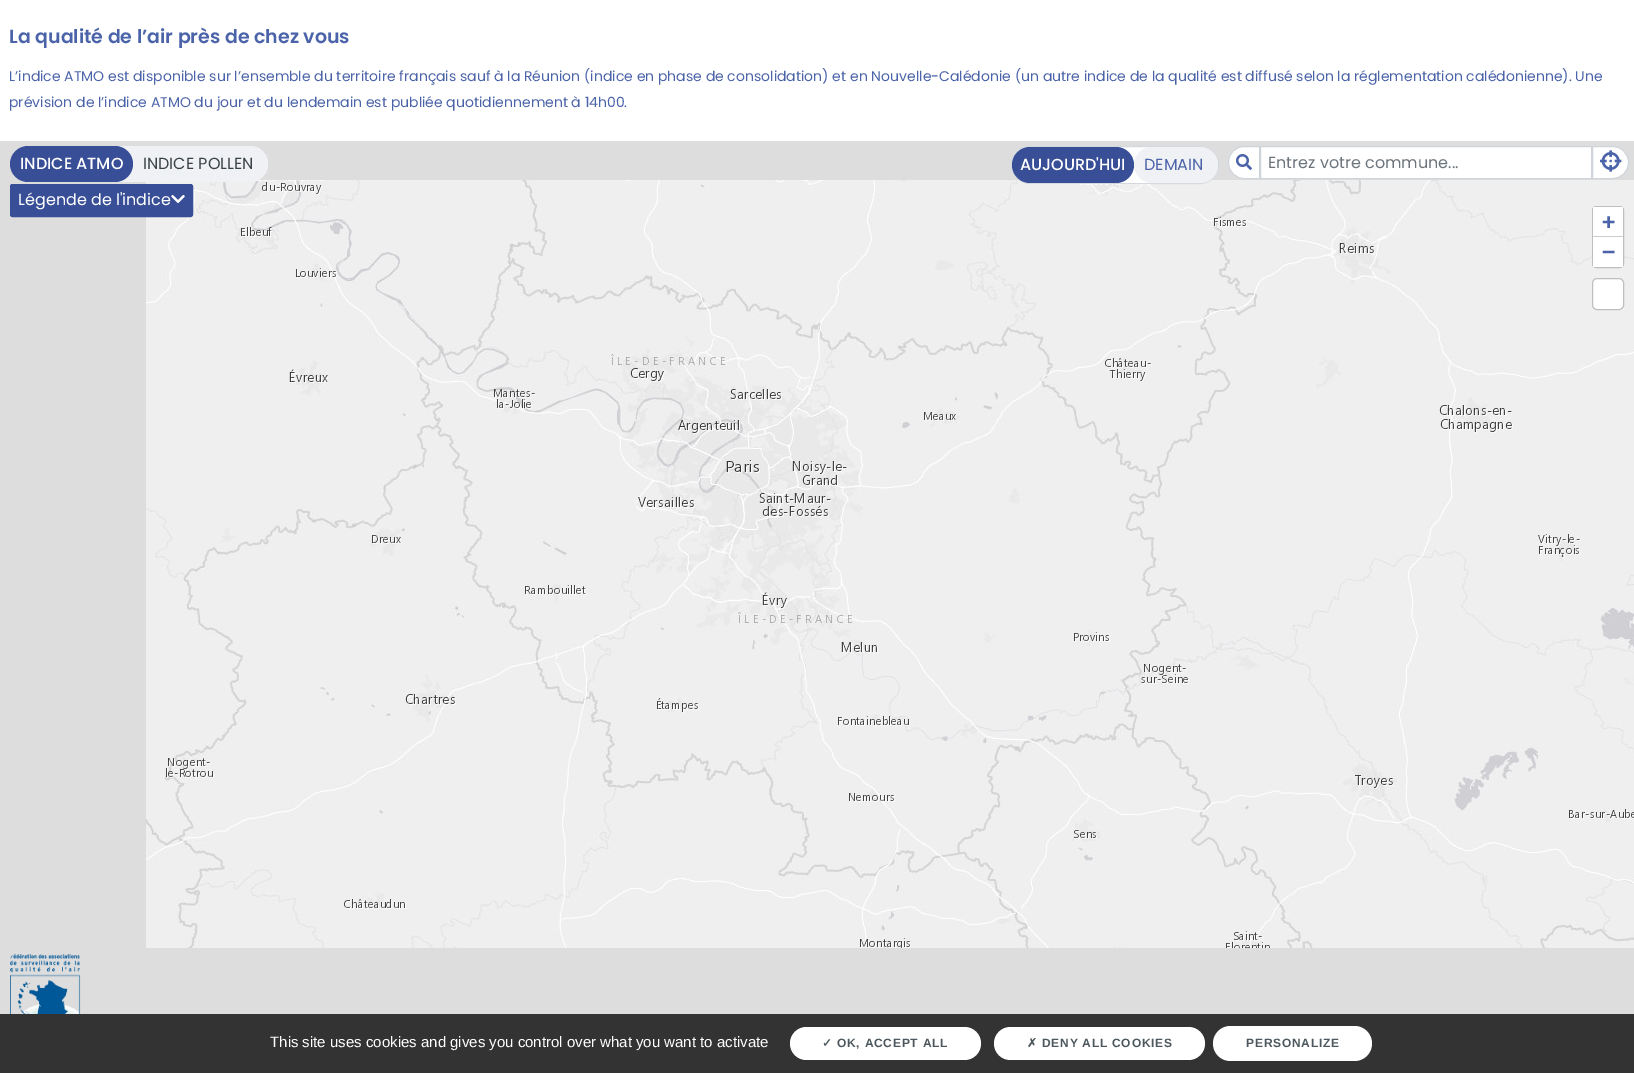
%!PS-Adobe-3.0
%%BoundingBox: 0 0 1634 1073
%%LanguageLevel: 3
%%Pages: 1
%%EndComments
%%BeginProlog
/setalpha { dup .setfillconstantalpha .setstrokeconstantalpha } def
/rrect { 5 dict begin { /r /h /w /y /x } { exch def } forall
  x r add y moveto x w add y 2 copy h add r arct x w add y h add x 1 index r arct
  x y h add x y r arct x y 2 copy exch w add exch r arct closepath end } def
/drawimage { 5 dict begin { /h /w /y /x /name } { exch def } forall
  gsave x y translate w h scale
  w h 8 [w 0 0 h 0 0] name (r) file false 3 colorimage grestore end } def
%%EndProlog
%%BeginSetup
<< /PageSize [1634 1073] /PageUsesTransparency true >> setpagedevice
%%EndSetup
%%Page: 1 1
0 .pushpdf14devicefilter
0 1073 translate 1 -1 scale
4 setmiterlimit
1 setgray
0 0 1634 1073 rectfill
0.867 setgray
0 141 1634 873 rectfill
(images/4.raw) 146 180 256 256 drawimage
(images/22.raw) 241 180 96 203 drawimage
0.941 0.945 0.957 setrgbcolor
10 146 258 36 18 rrect fill
0.22 0.306 0.588 setrgbcolor
10 146 123 36 18 rrect fill
0.941 0.945 0.957 setrgbcolor
133 146 135 36 18 rrect fill
0.22 0.306 0.588 setrgbcolor
10.5 184.5 182 32 2 rrect gsave fill grestore
stroke
(images/1.raw) 171 194 14 10 drawimage
(images/7.raw) 914 180 256 256 drawimage
(images/8.raw) 1170 180 256 256 drawimage
1 setgray
1011.5 146.5 207 37 18.5 rrect gsave fill grestore
0.827 0.851 0.871 setrgbcolor
stroke
0.22 0.306 0.588 setrgbcolor
1012 147 122 36 18 rrect fill
0.941 0.945 0.957 setrgbcolor
1134 147 84 36 18 rrect fill
1 setgray
newpath 1244 146.5 moveto 1259.5 146.5 lineto 1259.5 178.5 lineto 1244 178.5 lineto 1235.5 178.5 1228.5 171.5 1228.5 163 curveto 1228.5 162 lineto 1228.5 153.5 1235.5 146.5 1244 146.5 curveto closepath gsave fill grestore
0.808 0.831 0.855 setrgbcolor
stroke
(images/2.raw) 1236 154 16 16 drawimage
1 setgray
newpath 1260.5 146.5 moveto 1591.5 146.5 lineto 1591.5 178.5 lineto 1260.5 178.5 lineto closepath gsave fill grestore
0.808 0.831 0.855 setrgbcolor
stroke
1 setgray
newpath 1592.5 146.5 moveto 1612.5 146.5 lineto 1621.5 146.5 1628.5 153.5 1628.5 162.5 curveto 1628.5 171.5 1621.5 178.5 1612.5 178.5 curveto 1592.5 178.5 lineto closepath gsave fill grestore
0.808 0.831 0.855 setrgbcolor
stroke
(images/3.raw) 1600 150 22 22 drawimage
(images/5.raw) 402 180 256 256 drawimage
(images/6.raw) 658 180 256 256 drawimage
(images/9.raw) 1426 180 208 256 drawimage
(images/10.raw) 146 436 256 256 drawimage
(images/11.raw) 402 436 256 256 drawimage
(images/12.raw) 658 436 256 256 drawimage
(images/13.raw) 914 436 256 256 drawimage
(images/14.raw) 1170 436 256 256 drawimage
(images/15.raw) 1426 436 208 256 drawimage
(images/16.raw) 146 692 256 256 drawimage
(images/17.raw) 402 692 256 256 drawimage
(images/18.raw) 658 692 256 256 drawimage
(images/19.raw) 914 692 256 256 drawimage
(images/20.raw) 1170 692 256 256 drawimage
(images/21.raw) 1426 692 208 256 drawimage
(images/23.raw) 924 184 228 237 drawimage
(images/24.raw) 1214 217 161 37 drawimage
(images/25.raw) 494 368 164 41 drawimage
(images/26.raw) 658 371 124 63 drawimage
(images/27.raw) 1439 405 74 28 drawimage
(images/28.raw) 372 535 30 9 drawimage
(images/29.raw) 525 497 133 98 drawimage
(images/30.raw) 658 460 220 193 drawimage
(images/31.raw) 1538 534 43 24 drawimage
(images/32.raw) 1074 632 96 52 drawimage
(images/33.raw) 1170 664 19 20 drawimage
(images/34.raw) 166 758 236 151 drawimage
(images/35.raw) 402 694 256 215 drawimage
(images/36.raw) 658 698 253 250 drawimage
(images/37.raw) 1226 775 168 173 drawimage
(images/38.raw) 1569 809 65 10 drawimage
(images/39.raw) 1074 830 23 9 drawimage
0.2 setalpha
0 setgray
1592.5 206.5 31 61 3.5 rrect stroke
1 setalpha
1 setgray
1593 207 30 29 rectfill
0.8 setgray
1593 236 30 1 rectfill
1 setgray
1593 237 30 30 rectfill
1592.5 278.5 31 31 4.5 rrect gsave fill grestore
0.749 setgray
stroke
(images/40.raw) 10 954 71 60 drawimage
0.2 setgray
0 1014 1634 59 rectfill
1 setgray
790 1027 191 33 16.5 rrect fill
994 1027 211 33 16.5 rrect fill
1213 1026 159 35 17.5 rrect fill
/Poppins-SemiBold [19 0 0 -19 0 0] selectfont
0.294 0.388 0.659 setrgbcolor
9 43 moveto (La qualité de l’air près de chez vous) show
/Poppins-Regular [14 0 0 -14 0 0] selectfont
9 81 moveto (L’indice ATMO est disponible sur l’ensemble du territoire français sauf à la Réunion \(indice en phase de consolidation\) et en Nouvelle-Calédonie \(un autre indice de la qualité est diffusé selon la réglementation calédonienne\). Une) show
9 107 moveto (prévision de l’indice ATMO du jour et du lendemain est publiée quotidiennement à 14h00.) show
/Poppins-Medium [16 0 0 -16 0 0] selectfont
1 setgray
20 169 moveto (INDICE ATMO) show
/Poppins-Regular [16 0 0 -16 0 0] selectfont
0.224 0.259 0.278 setrgbcolor
143 169 moveto (INDICE POLLEN) show
1 setgray
18 205 moveto (Légende de l'indice) show
/Poppins-Medium [16 0 0 -16 0 0] selectfont
1020 170 moveto (AUJOURD'HUI) show
/Poppins-Regular [16 0 0 -16 0 0] selectfont
0.294 0.388 0.659 setrgbcolor
1144 170 moveto (DEMAIN) show
0.424 0.459 0.49 setrgbcolor
1268 168 moveto (Entrez votre commune...) show
/DejaVuSansMono-Bold [22 0 0 -22 0 0] selectfont
0.294 0.388 0.659 setrgbcolor
1602 229 moveto (+) show
1602 259 moveto (−) show
/LiberationSans-Regular [15 0 0 -15 0 0] selectfont
1 setgray
270 1047 moveto (This site uses cookies and gives you control over what you want to activate) show
/DejaVuSans-Bold [12 0 0 -12 0 0] selectfont
0.298 0.345 0.369 setrgbcolor
822 1047 moveto 0.75 0 (✓) ashow
/LiberationSans-Bold [12 0 0 -12 0 0] selectfont
837 1047 moveto 0.75 0 (OK, ACCEPT ALL) ashow
/DejaVuSans-Bold [12 0 0 -12 0 0] selectfont
1027 1047 moveto 0.75 0 (✗) ashow
/LiberationSans-Bold [12 0 0 -12 0 0] selectfont
1042 1047 moveto 0.75 0 (DENY ALL COOKIES) ashow
1246 1047 moveto 0.75 0 (PERSONALIZE) ashow
.poppdf14devicefilter showpage
%%EOF
